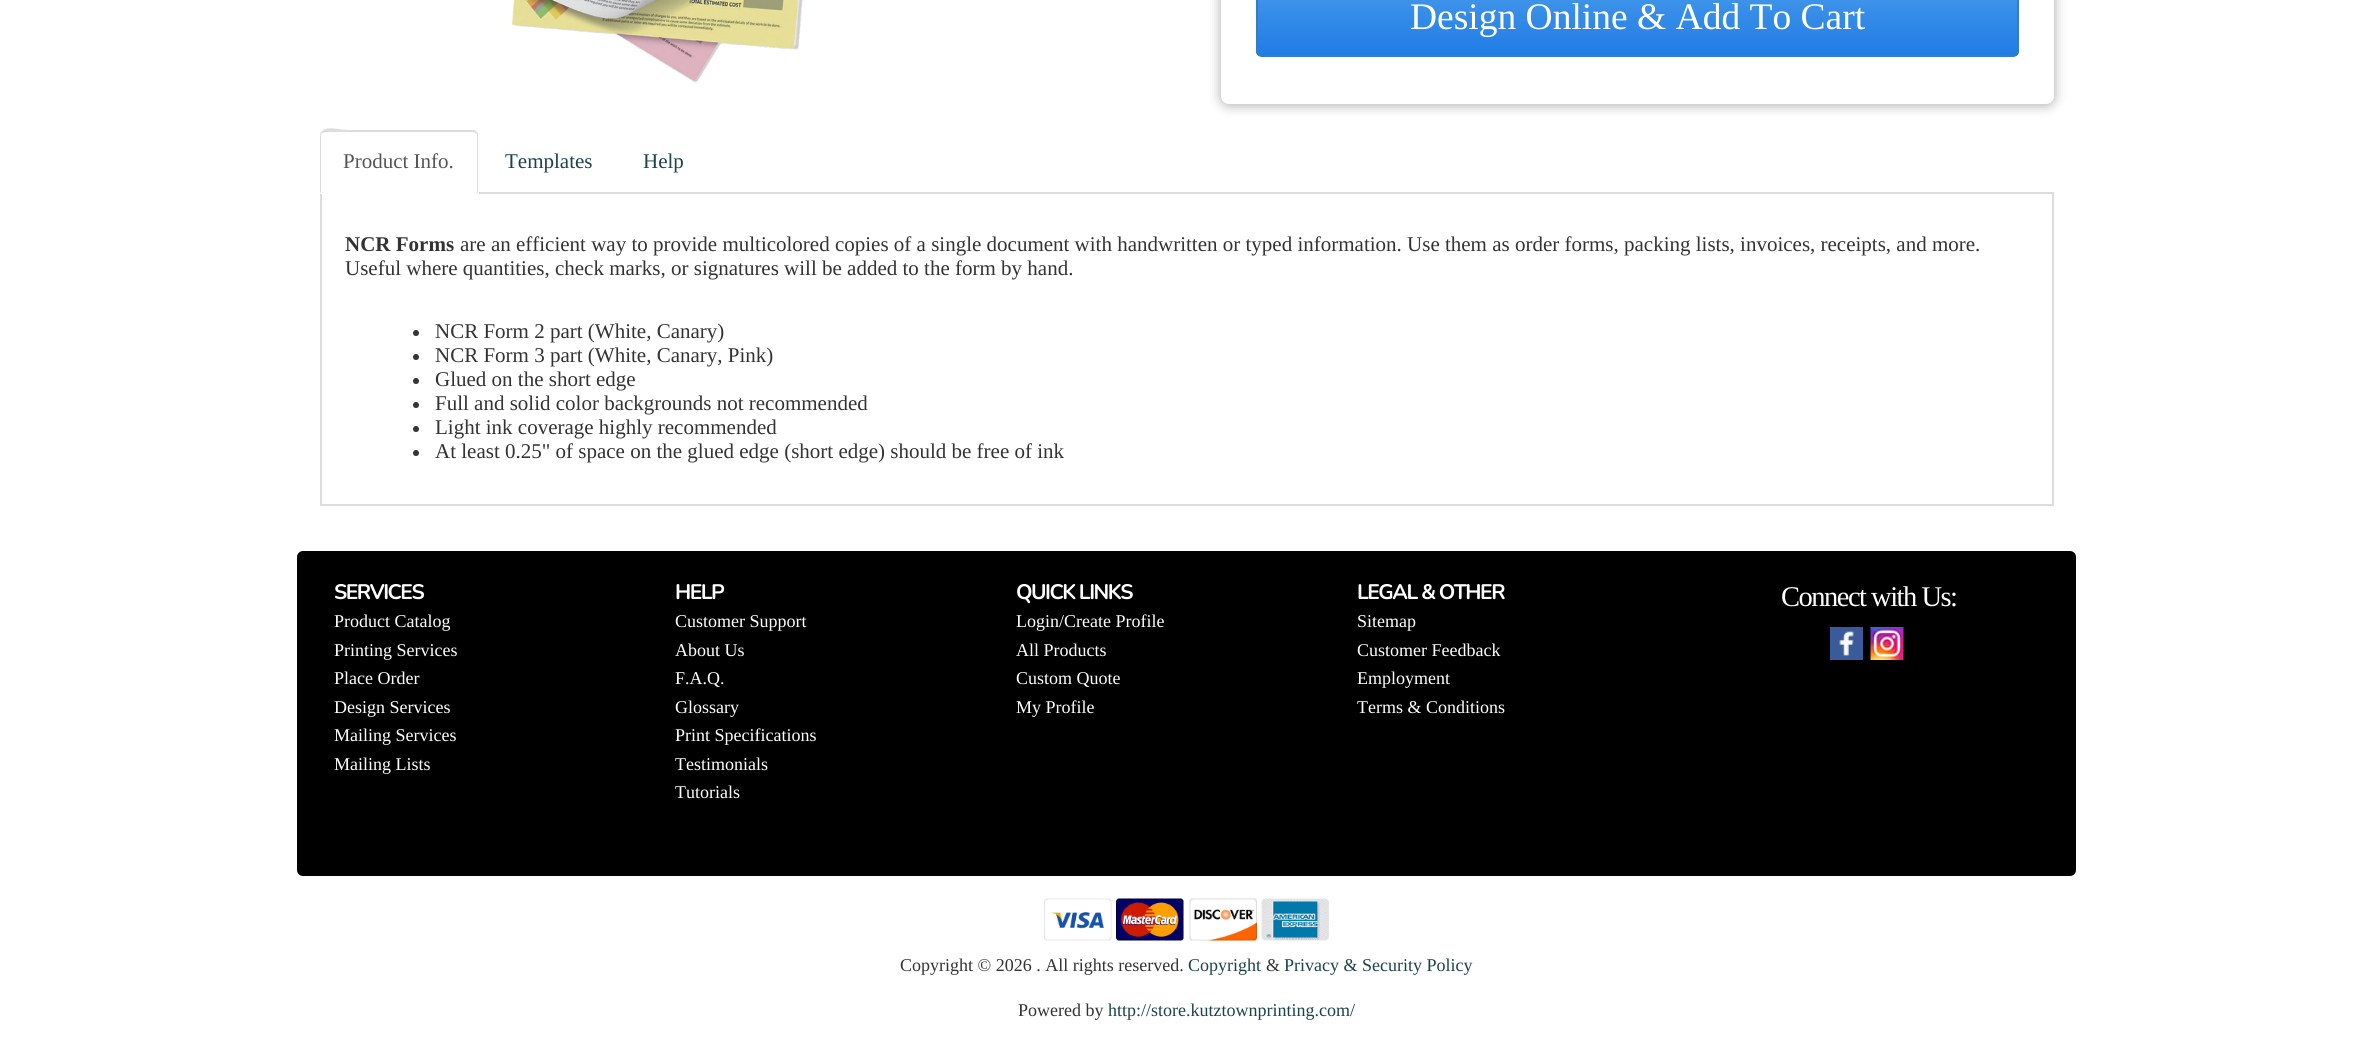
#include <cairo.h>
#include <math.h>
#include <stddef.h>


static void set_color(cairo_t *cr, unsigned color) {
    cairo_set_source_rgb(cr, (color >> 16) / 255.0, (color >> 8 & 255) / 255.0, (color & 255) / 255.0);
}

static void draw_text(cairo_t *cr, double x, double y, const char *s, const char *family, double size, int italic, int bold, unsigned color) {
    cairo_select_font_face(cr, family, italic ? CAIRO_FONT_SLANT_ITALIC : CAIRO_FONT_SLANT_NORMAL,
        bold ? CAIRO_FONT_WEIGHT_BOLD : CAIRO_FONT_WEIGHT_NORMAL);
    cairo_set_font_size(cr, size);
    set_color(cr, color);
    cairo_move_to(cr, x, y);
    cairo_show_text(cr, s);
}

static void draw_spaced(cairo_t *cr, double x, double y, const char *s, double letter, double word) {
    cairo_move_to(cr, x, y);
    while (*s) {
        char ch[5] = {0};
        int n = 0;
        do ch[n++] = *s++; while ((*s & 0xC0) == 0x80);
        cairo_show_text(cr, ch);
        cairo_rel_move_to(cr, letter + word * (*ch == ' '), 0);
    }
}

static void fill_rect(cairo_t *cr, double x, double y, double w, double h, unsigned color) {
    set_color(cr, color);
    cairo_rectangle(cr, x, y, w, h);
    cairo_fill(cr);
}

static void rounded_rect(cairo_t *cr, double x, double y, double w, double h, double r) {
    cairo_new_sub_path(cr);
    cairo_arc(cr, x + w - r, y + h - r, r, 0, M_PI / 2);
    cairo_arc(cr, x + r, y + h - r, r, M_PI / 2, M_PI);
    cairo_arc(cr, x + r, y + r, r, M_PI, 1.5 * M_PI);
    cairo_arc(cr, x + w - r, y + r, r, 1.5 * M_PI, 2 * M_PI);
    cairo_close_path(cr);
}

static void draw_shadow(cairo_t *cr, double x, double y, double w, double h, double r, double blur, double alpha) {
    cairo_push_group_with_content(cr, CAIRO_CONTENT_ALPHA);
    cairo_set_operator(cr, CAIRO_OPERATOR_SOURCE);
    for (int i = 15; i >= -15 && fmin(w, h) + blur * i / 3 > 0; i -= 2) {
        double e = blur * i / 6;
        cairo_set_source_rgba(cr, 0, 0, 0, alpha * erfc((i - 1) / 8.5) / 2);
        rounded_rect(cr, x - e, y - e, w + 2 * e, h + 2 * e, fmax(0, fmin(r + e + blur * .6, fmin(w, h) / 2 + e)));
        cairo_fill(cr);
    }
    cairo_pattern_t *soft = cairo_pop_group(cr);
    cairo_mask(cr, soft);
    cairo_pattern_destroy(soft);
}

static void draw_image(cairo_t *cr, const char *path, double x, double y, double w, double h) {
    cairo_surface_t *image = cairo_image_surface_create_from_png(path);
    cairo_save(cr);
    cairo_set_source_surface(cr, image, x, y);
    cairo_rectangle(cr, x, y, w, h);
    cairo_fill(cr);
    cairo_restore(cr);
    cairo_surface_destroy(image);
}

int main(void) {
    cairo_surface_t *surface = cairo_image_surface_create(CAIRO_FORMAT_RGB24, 2373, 1058);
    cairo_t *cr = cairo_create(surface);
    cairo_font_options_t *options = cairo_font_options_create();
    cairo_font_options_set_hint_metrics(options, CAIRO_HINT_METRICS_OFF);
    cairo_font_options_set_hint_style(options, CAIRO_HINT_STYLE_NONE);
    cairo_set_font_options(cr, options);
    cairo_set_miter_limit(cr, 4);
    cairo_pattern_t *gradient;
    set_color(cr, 0xFFFFFF);
    cairo_paint(cr);
    draw_image(cr, "assets/img1.png", 511, 0, 292, 83);
    set_color(cr, 0x000000);
    draw_shadow(cr, 1221, -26, 833, 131, 8, 6, 0.35);
    set_color(cr, 0xFFFFFF);
    rounded_rect(cr, 1221, -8, 833, 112, 8);
    cairo_fill(cr);
    cairo_save(cr);
    rounded_rect(cr, 1256, -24, 763, 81, 6);
    cairo_clip(cr);
    gradient = cairo_pattern_create_linear(1637, -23, 1637, 56);
    cairo_pattern_add_color_stop_rgba(gradient, 0, 0.286, 0.608, 0.918, 1);
    cairo_pattern_add_color_stop_rgba(gradient, 1, 0.125, 0.486, 0.898, 1);
    cairo_set_source(cr, gradient);
    cairo_pattern_destroy(gradient);
    cairo_rectangle(cr, 1256, 0, 763, 56);
    cairo_fill(cr);
    cairo_restore(cr);
    rounded_rect(cr, 1257, -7, 761, 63, 5);
    set_color(cr, 0x357EBD);
    cairo_stroke(cr);
    draw_text(cr, 1410, 29, "Design Online & Add To Cart", "Liberation Serif", 37.5, 0, 0, 0xFFFFFF);
    fill_rect(cr, 479, 192, 1575, 2, 0xDDDDDD);
    cairo_new_path(cr);
    cairo_move_to(cr, 326, 132);
    cairo_curve_to(cr, 324, 132, 323, 133, 322, 133);
    cairo_line_to(cr, 321, 132);
    cairo_curve_to(cr, 327, 125, 339, 130, 349, 130);
    cairo_line_to(cr, 475, 130);
    cairo_line_to(cr, 477, 132);
    cairo_line_to(cr, 476, 133);
    cairo_curve_to(cr, 475, 133, 474, 132, 472, 132);
    cairo_close_path(cr);
    cairo_fill(cr);
    cairo_new_path(cr);
    cairo_move_to(cr, 477, 132);
    cairo_curve_to(cr, 478, 133, 478, 135, 478, 136);
    cairo_line_to(cr, 478, 193);
    cairo_line_to(cr, 477, 192);
    cairo_line_to(cr, 477, 135);
    cairo_line_to(cr, 476, 133);
    cairo_close_path(cr);
    cairo_fill(cr);
    cairo_new_path(cr);
    cairo_move_to(cr, 320, 193);
    cairo_line_to(cr, 320, 136);
    cairo_curve_to(cr, 320, 135, 320, 133, 321, 132);
    cairo_line_to(cr, 322, 133);
    cairo_line_to(cr, 321, 135);
    cairo_line_to(cr, 321, 192);
    cairo_close_path(cr);
    cairo_fill(cr);
    draw_text(cr, 343, 168, "Product Info.", "Liberation Serif", 21, 0, 0, 0x555555);
    draw_text(cr, 505, 168, "Templates", "Liberation Serif", 21, 0, 0, 0x1B444A);
    draw_text(cr, 643, 168, "Help", "Liberation Serif", 21, 0, 0, 0x1B444A);
    fill_rect(cr, 2052, 194, 2, 312, 0xDDDDDD);
    fill_rect(cr, 320, 504, 1734, 2, 0xDDDDDD);
    fill_rect(cr, 320, 194, 2, 312, 0xDDDDDD);
    draw_text(cr, 345, 251, "NCR Forms", "Liberation Serif", 21, 0, 1, 0x333333);
    draw_text(cr, 460, 251, "are an efficient way to provide multicolored copies of a single document with handwritten or typed information. Use them as order forms, packing lists, invoices, receipts, and more.", "Liberation Serif", 21, 0, 0, 0x333333);
    draw_text(cr, 345, 275, "Useful where quantities, check marks, or signatures will be added to the form by hand.", "Liberation Serif", 21, 0, 0, 0x333333);
    cairo_new_path(cr);
    cairo_arc(cr, 416, 333, 3, 0, 2 * M_PI);
    cairo_fill(cr);
    draw_text(cr, 435, 338, "NCR Form 2 part (White, Canary)", "Liberation Serif", 21, 0, 0, 0x333333);
    cairo_new_path(cr);
    cairo_arc(cr, 416, 357, 3, 0, 2 * M_PI);
    cairo_fill(cr);
    draw_text(cr, 435, 362, "NCR Form 3 part (White, Canary, Pink)", "Liberation Serif", 21, 0, 0, 0x333333);
    cairo_new_path(cr);
    cairo_arc(cr, 416, 381, 3, 0, 2 * M_PI);
    cairo_fill(cr);
    draw_text(cr, 435, 386, "Glued on the short edge", "Liberation Serif", 21, 0, 0, 0x333333);
    cairo_new_path(cr);
    cairo_arc(cr, 416, 405, 3, 0, 2 * M_PI);
    cairo_fill(cr);
    draw_text(cr, 435, 410, "Full and solid color backgrounds not recommended", "Liberation Serif", 21, 0, 0, 0x333333);
    cairo_new_path(cr);
    cairo_arc(cr, 416, 429, 3, 0, 2 * M_PI);
    cairo_fill(cr);
    draw_text(cr, 435, 434, "Light ink coverage highly recommended", "Liberation Serif", 21, 0, 0, 0x333333);
    cairo_new_path(cr);
    cairo_arc(cr, 416, 453, 3, 0, 2 * M_PI);
    cairo_fill(cr);
    draw_text(cr, 435, 458, "At least 0.25\" of space on the glued edge (short edge) should be free of ink", "Liberation Serif", 21, 0, 0, 0x333333);
    set_color(cr, 0x000000);
    rounded_rect(cr, 297, 551, 1779, 325, 6);
    cairo_fill(cr);
    cairo_select_font_face(cr, "Nunito", CAIRO_FONT_SLANT_NORMAL, CAIRO_FONT_WEIGHT_BOLD);
    set_color(cr, 0xFFFFFF);
    draw_spaced(cr, 334, 599, "SERVICES", -1.5, 0);
    draw_text(cr, 334, 627, "Product Catalog", "Liberation Serif", 18, 0, 0, 0xFFFFFF);
    draw_text(cr, 334, 656, "Printing Services", "Liberation Serif", 18, 0, 0, 0xFFFFFF);
    draw_text(cr, 334, 684, "Place Order", "Liberation Serif", 18, 0, 0, 0xFFFFFF);
    draw_text(cr, 334, 713, "Design Services", "Liberation Serif", 18, 0, 0, 0xFFFFFF);
    draw_text(cr, 334, 741, "Mailing Services", "Liberation Serif", 18, 0, 0, 0xFFFFFF);
    draw_text(cr, 334, 770, "Mailing Lists", "Liberation Serif", 18, 0, 0, 0xFFFFFF);
    cairo_select_font_face(cr, "Nunito", CAIRO_FONT_SLANT_NORMAL, CAIRO_FONT_WEIGHT_BOLD);
    cairo_set_font_size(cr, 21);
    draw_spaced(cr, 675, 599, "HELP", -1.5, 0);
    draw_text(cr, 675, 627, "Customer Support", "Liberation Serif", 18, 0, 0, 0xFFFFFF);
    draw_text(cr, 675, 656, "About Us", "Liberation Serif", 18, 0, 0, 0xFFFFFF);
    draw_text(cr, 675, 684, "F.A.Q.", "Liberation Serif", 18, 0, 0, 0xFFFFFF);
    draw_text(cr, 675, 713, "Glossary", "Liberation Serif", 18, 0, 0, 0xFFFFFF);
    draw_text(cr, 675, 741, "Print Specifications", "Liberation Serif", 18, 0, 0, 0xFFFFFF);
    draw_text(cr, 675, 770, "Testimonials", "Liberation Serif", 18, 0, 0, 0xFFFFFF);
    draw_text(cr, 675, 798, "Tutorials", "Liberation Serif", 18, 0, 0, 0xFFFFFF);
    cairo_select_font_face(cr, "Nunito", CAIRO_FONT_SLANT_NORMAL, CAIRO_FONT_WEIGHT_BOLD);
    cairo_set_font_size(cr, 21);
    draw_spaced(cr, 1016, 599, "QUICK LINKS", -1.5, 0);
    draw_text(cr, 1016, 627, "Login/Create Profile", "Liberation Serif", 18, 0, 0, 0xFFFFFF);
    draw_text(cr, 1016, 656, "All Products", "Liberation Serif", 18, 0, 0, 0xFFFFFF);
    draw_text(cr, 1016, 684, "Custom Quote", "Liberation Serif", 18, 0, 0, 0xFFFFFF);
    draw_text(cr, 1016, 713, "My Profile", "Liberation Serif", 18, 0, 0, 0xFFFFFF);
    cairo_select_font_face(cr, "Nunito", CAIRO_FONT_SLANT_NORMAL, CAIRO_FONT_WEIGHT_BOLD);
    cairo_set_font_size(cr, 21);
    draw_spaced(cr, 1357, 599, "LEGAL & OTHER", -1.5, 0);
    draw_text(cr, 1357, 627, "Sitemap", "Liberation Serif", 18, 0, 0, 0xFFFFFF);
    draw_text(cr, 1357, 656, "Customer Feedback", "Liberation Serif", 18, 0, 0, 0xFFFFFF);
    draw_text(cr, 1357, 684, "Employment", "Liberation Serif", 18, 0, 0, 0xFFFFFF);
    draw_text(cr, 1357, 713, "Terms & Conditions", "Liberation Serif", 18, 0, 0, 0xFFFFFF);
    cairo_set_font_size(cr, 28.5);
    draw_spaced(cr, 1781, 606, "Connect with Us:", -1.5, 0);
    draw_image(cr, "assets/img2.png", 1830, 627, 33, 33);
    draw_image(cr, "assets/img3.png", 1870, 627, 34, 33);
    draw_image(cr, "assets/img4.png", 1044, 898, 68, 43);
    draw_image(cr, "assets/img5.png", 1116, 898, 68, 43);
    draw_image(cr, "assets/img6.png", 1189, 898, 68, 43);
    draw_image(cr, "assets/img7.png", 1261, 898, 68, 43);
    draw_text(cr, 900, 971, "Copyright © 2026 . All rights reserved.", "Liberation Serif", 18, 0, 0, 0x333333);
    draw_text(cr, 1188, 971, "Copyright", "Liberation Serif", 18, 0, 0, 0x1B444A);
    draw_text(cr, 1266, 971, "&", "Liberation Serif", 18, 0, 0, 0x333333);
    draw_text(cr, 1284, 971, "Privacy & Security Policy", "Liberation Serif", 18, 0, 0, 0x1B444A);
    draw_text(cr, 1018, 1016, "Powered by", "Liberation Serif", 18, 0, 0, 0x333333);
    draw_text(cr, 1108, 1016, "http://store.kutztownprinting.com/", "Liberation Serif", 18, 0, 0, 0x1B444A);
    cairo_surface_write_to_png(surface, "output.png");
    cairo_font_options_destroy(options);
    cairo_destroy(cr);
    cairo_surface_destroy(surface);
    return 0;
}
